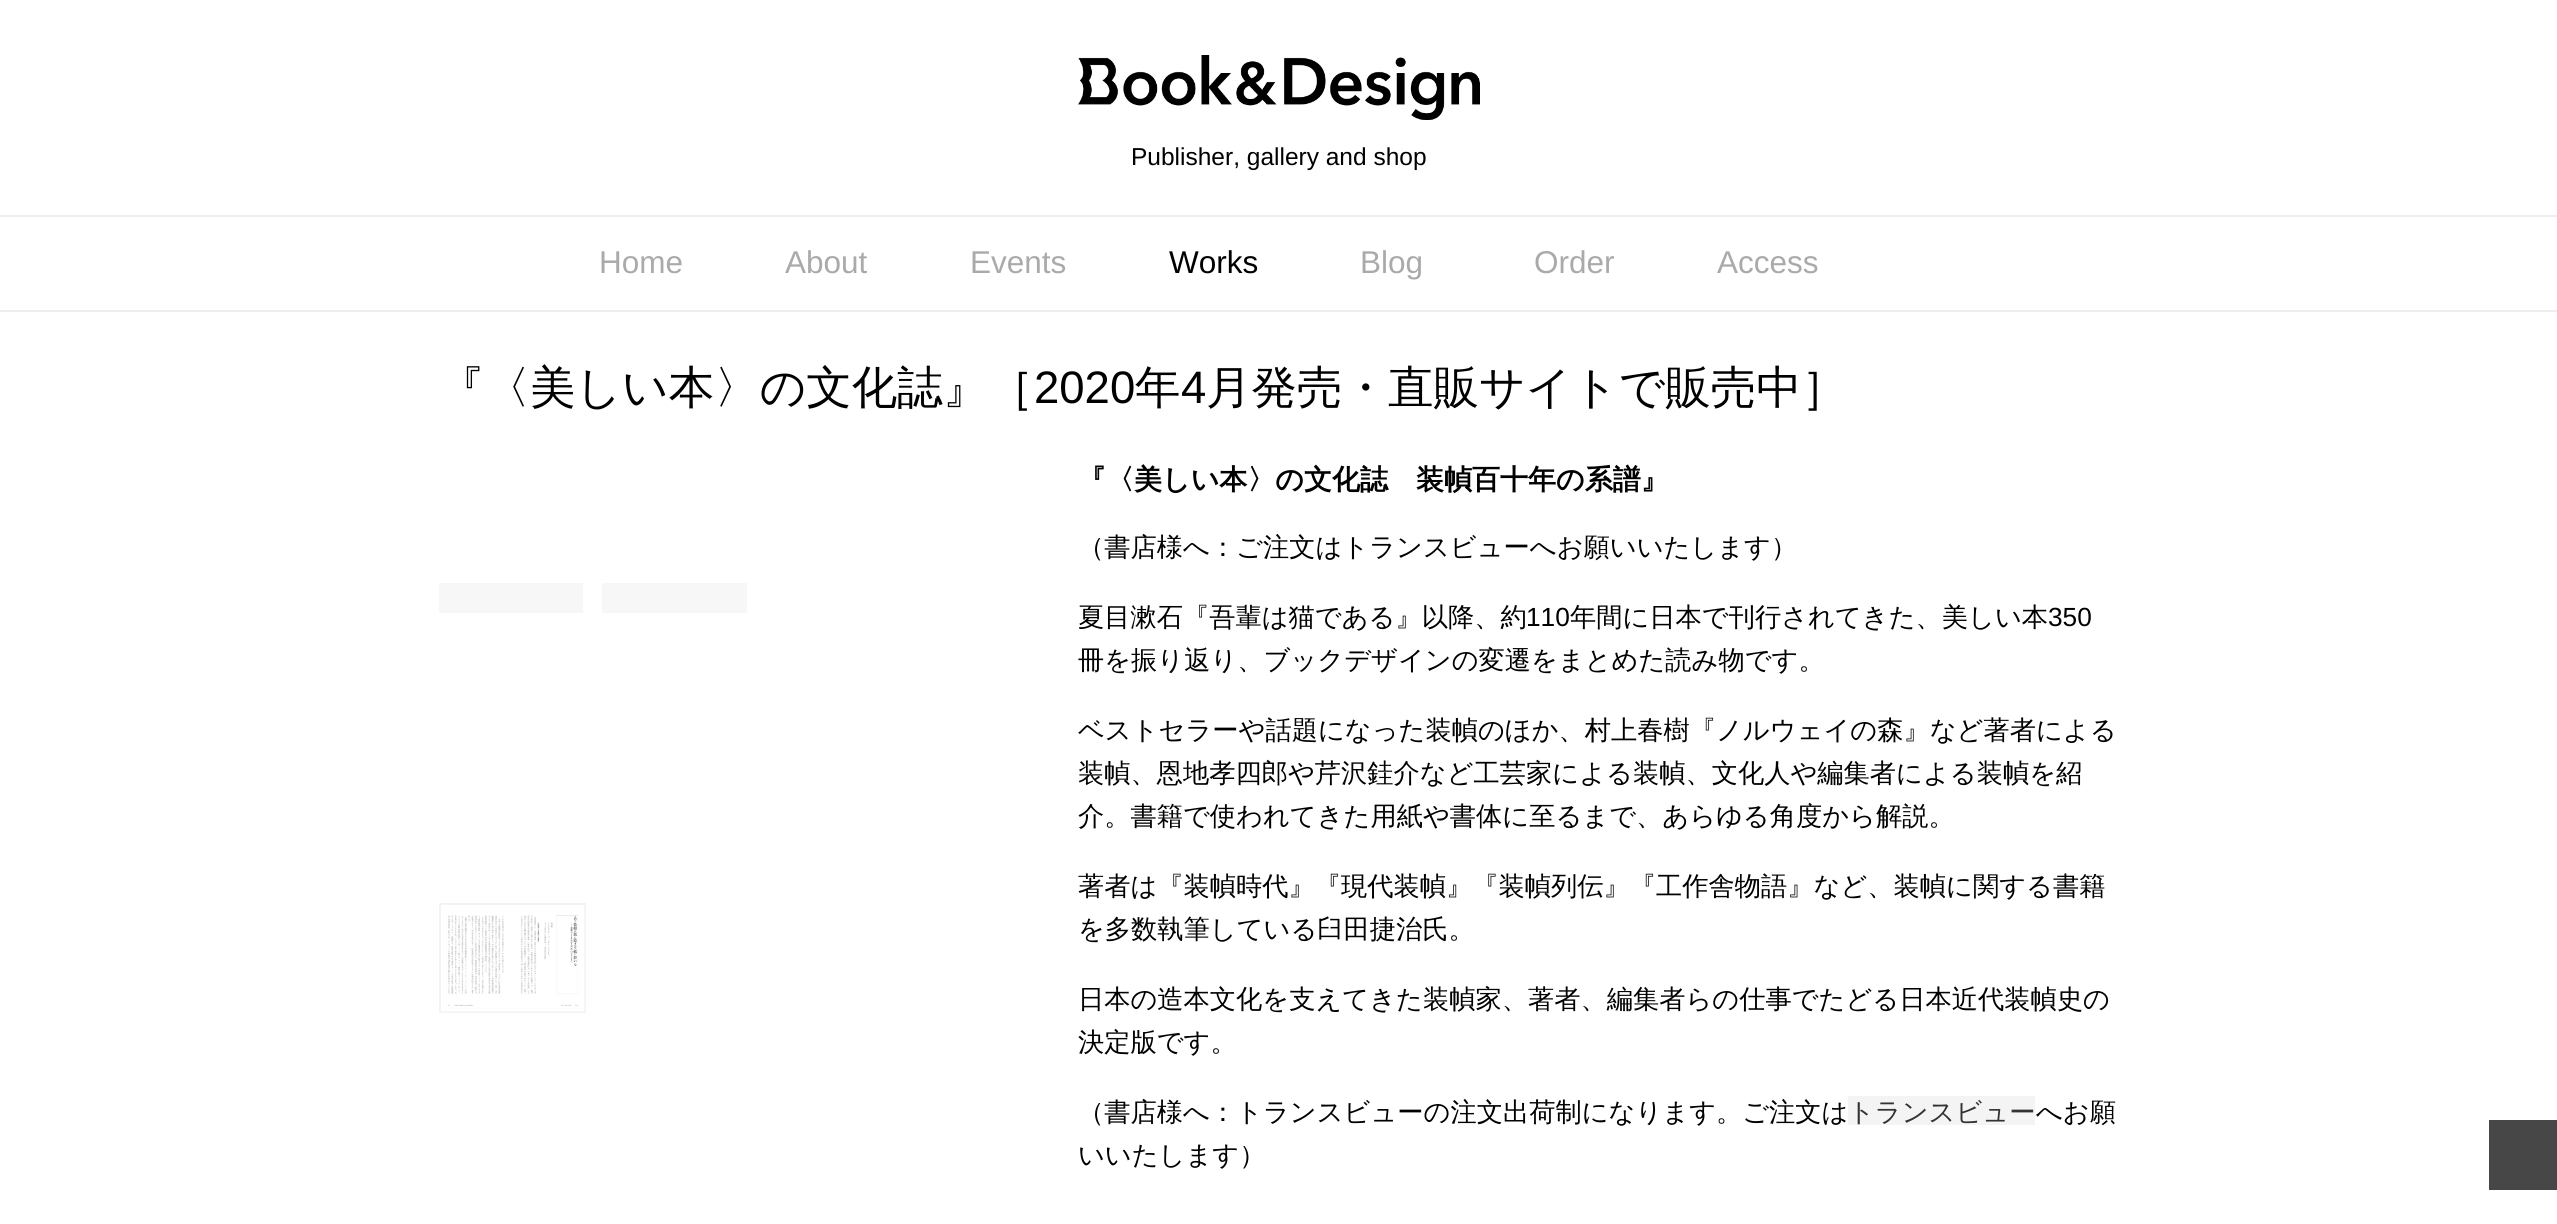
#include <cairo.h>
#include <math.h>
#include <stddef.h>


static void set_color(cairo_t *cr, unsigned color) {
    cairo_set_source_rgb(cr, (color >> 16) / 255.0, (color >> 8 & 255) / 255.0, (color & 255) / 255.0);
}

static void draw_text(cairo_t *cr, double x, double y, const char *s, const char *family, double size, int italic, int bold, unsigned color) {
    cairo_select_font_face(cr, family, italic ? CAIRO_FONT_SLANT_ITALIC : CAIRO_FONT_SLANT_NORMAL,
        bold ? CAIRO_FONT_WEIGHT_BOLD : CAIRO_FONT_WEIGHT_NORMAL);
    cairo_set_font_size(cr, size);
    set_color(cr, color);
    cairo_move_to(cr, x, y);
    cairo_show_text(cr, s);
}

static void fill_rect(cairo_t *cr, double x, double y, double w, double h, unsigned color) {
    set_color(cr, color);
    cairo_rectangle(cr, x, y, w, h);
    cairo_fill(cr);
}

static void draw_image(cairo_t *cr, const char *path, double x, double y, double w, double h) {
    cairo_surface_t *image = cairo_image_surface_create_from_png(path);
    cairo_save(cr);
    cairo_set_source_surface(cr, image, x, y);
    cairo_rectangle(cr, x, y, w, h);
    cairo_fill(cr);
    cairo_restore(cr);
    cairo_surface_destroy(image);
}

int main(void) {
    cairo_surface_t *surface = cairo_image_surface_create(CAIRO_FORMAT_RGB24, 2557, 1224);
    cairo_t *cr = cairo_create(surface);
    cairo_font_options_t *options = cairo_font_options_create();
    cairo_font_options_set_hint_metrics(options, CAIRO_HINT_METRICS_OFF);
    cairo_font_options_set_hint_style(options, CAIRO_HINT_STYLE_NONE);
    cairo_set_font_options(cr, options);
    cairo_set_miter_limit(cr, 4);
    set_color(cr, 0xFFFFFF);
    cairo_paint(cr);
    draw_image(cr, "assets/img1.png", 1078, 55, 402, 65);
    draw_text(cr, 1131, 165, "Publisher, gallery and shop", "Liberation Sans", 24.5, 0, 0, 0x000000);
    fill_rect(cr, 0, 215, 2557, 2, 0xEEEEEE);
    fill_rect(cr, 0, 310, 2557, 2, 0xEEEEEE);
    draw_text(cr, 599, 273, "Home", "Liberation Sans", 31.5, 0, 0, 0xAAAAAA);
    draw_text(cr, 785, 273, "About", "Liberation Sans", 31.5, 0, 0, 0xAAAAAA);
    draw_text(cr, 970, 273, "Events", "Liberation Sans", 31.5, 0, 0, 0xAAAAAA);
    draw_text(cr, 1169, 273, "Works", "Liberation Sans", 31.5, 0, 0, 0x000000);
    draw_text(cr, 1360, 273, "Blog", "Liberation Sans", 31.5, 0, 0, 0xAAAAAA);
    draw_text(cr, 1534, 273, "Order", "Liberation Sans", 31.5, 0, 0, 0xAAAAAA);
    draw_text(cr, 1717, 273, "Access", "Liberation Sans", 31.5, 0, 0, 0xAAAAAA);
    draw_text(cr, 439, 403, "『〈美しい本〉の文化誌』［", "WenQuanYi Zen Hei Medium", 45.5, 0, 0, 0x000000);
    draw_text(cr, 1034, 403, "2020", "Liberation Sans", 45.5, 0, 0, 0x000000);
    draw_text(cr, 1135, 403, "年", "WenQuanYi Zen Hei Medium", 45.5, 0, 0, 0x000000);
    draw_text(cr, 1181, 403, "4", "Liberation Sans", 45.5, 0, 0, 0x000000);
    draw_text(cr, 1206, 403, "月発売・直販サイトで販売中］", "WenQuanYi Zen Hei Medium", 45.5, 0, 0, 0x000000);
    fill_rect(cr, 439, 583, 144, 30, 0xF7F7F7);
    fill_rect(cr, 602, 583, 145, 30, 0xF7F7F7);
    cairo_rectangle(cr, 440, 904, 145, 108);
    set_color(cr, 0xF3F3F3);
    cairo_stroke(cr);
    draw_image(cr, "assets/img2.png", 441, 905, 144, 107);
    draw_text(cr, 1078, 489, "『〈美しい本〉の文化誌　装幀百十年の系譜』", "WenQuanYi Zen Hei", 28, 0, 1, 0x000000);
    draw_text(cr, 1078, 556, "（書店様へ：ご注文はトランスビューへお願いいたします）", "WenQuanYi Zen Hei Medium", 26.25, 0, 0, 0x000000);
    draw_text(cr, 1078, 626, "夏目漱石『吾輩は猫である』以降、約", "WenQuanYi Zen Hei Medium", 26.25, 0, 0, 0x000000);
    draw_text(cr, 1526, 626, "110", "Liberation Sans", 26.25, 0, 0, 0x000000);
    draw_text(cr, 1570, 626, "年間に日本で刊行されてきた、美しい本", "WenQuanYi Zen Hei Medium", 26.25, 0, 0, 0x000000);
    draw_text(cr, 2048, 626, "350", "Liberation Sans", 26.25, 0, 0, 0x000000);
    draw_text(cr, 1078, 669, "冊を振り返り、ブックデザインの変遷をまとめた読み物です。", "WenQuanYi Zen Hei Medium", 26.25, 0, 0, 0x000000);
    draw_text(cr, 1078, 739, "ベストセラーや話題になった装幀のほか、村上春樹『ノルウェイの森』など著者による", "WenQuanYi Zen Hei Medium", 26.25, 0, 0, 0x000000);
    draw_text(cr, 1078, 782, "装幀、恩地孝四郎や芹沢銈介など工芸家による装幀、文化人や編集者による装幀を紹", "WenQuanYi Zen Hei Medium", 26.25, 0, 0, 0x000000);
    draw_text(cr, 1078, 825, "介。書籍で使われてきた用紙や書体に至るまで、あらゆる角度から解説。", "WenQuanYi Zen Hei Medium", 26.25, 0, 0, 0x000000);
    draw_text(cr, 1078, 895, "著者は『装幀時代』『現代装幀』『装幀列伝』『工作舎物語』など、装幀に関する書籍", "WenQuanYi Zen Hei Medium", 26.25, 0, 0, 0x000000);
    draw_text(cr, 1078, 938, "を多数執筆している臼田捷治氏。", "WenQuanYi Zen Hei Medium", 26.25, 0, 0, 0x000000);
    draw_text(cr, 1078, 1008, "日本の造本文化を支えてきた装幀家、著者、編集者らの仕事でたどる日本近代装幀史の", "WenQuanYi Zen Hei Medium", 26.25, 0, 0, 0x000000);
    draw_text(cr, 1078, 1051, "決定版です。", "WenQuanYi Zen Hei Medium", 26.25, 0, 0, 0x000000);
    draw_text(cr, 1078, 1121, "（書店様へ：トランスビューの注文出荷制になります。ご注文は", "WenQuanYi Zen Hei Medium", 26.25, 0, 0, 0x000000);
    fill_rect(cr, 1848, 1096, 187, 29, 0xF4F4F4);
    draw_text(cr, 1848, 1121, "トランスビュー", "WenQuanYi Zen Hei Medium", 26.25, 0, 0, 0x333333);
    draw_text(cr, 2036, 1121, "へお願", "WenQuanYi Zen Hei Medium", 26.25, 0, 0, 0x000000);
    draw_text(cr, 1078, 1164, "いいたします）", "WenQuanYi Zen Hei Medium", 26.25, 0, 0, 0x000000);
    fill_rect(cr, 2489, 1120, 68, 70, 0x474747);
    cairo_surface_write_to_png(surface, "output.png");
    cairo_font_options_destroy(options);
    cairo_destroy(cr);
    cairo_surface_destroy(surface);
    return 0;
}
